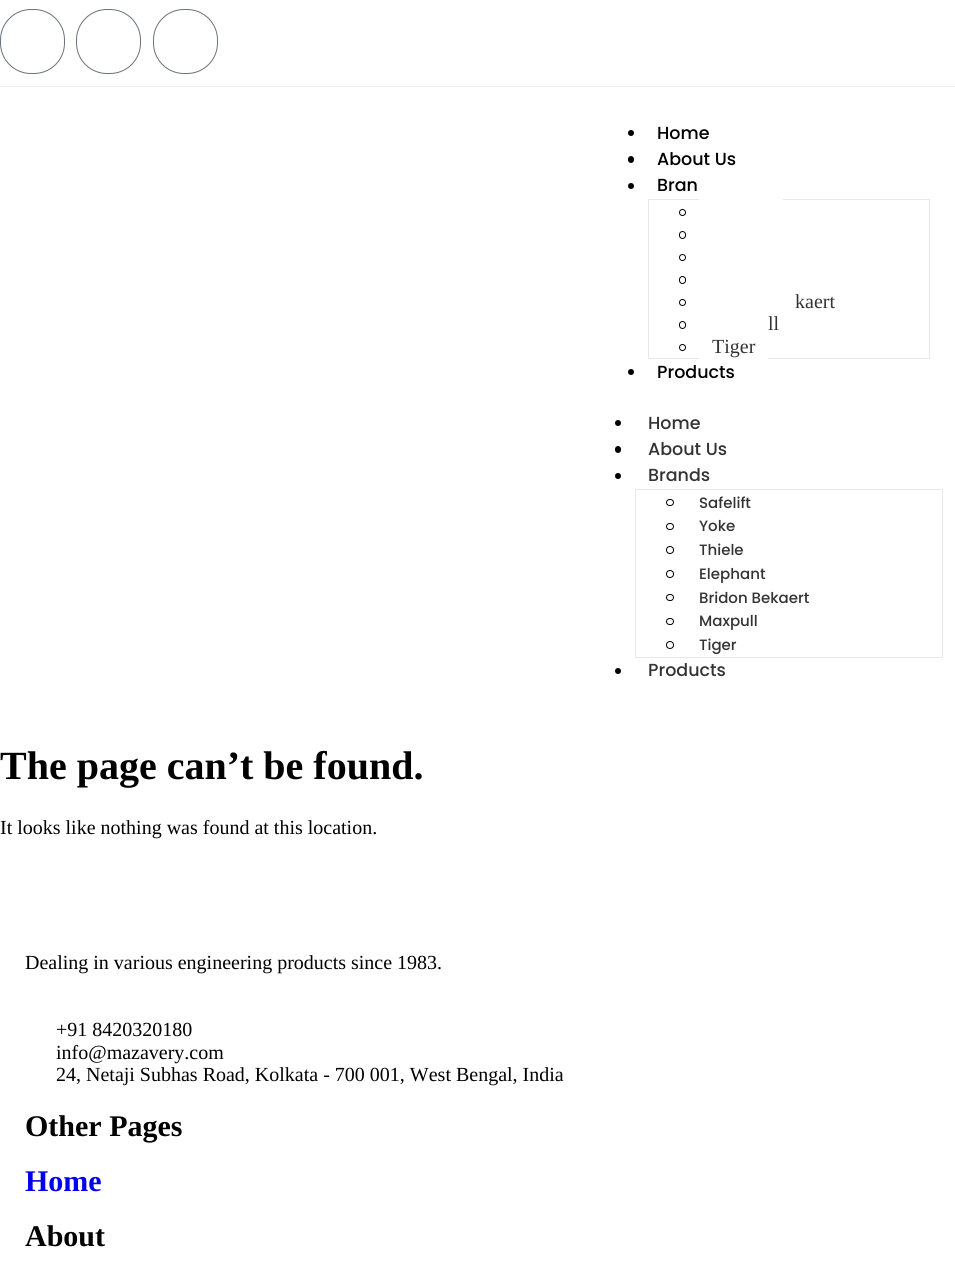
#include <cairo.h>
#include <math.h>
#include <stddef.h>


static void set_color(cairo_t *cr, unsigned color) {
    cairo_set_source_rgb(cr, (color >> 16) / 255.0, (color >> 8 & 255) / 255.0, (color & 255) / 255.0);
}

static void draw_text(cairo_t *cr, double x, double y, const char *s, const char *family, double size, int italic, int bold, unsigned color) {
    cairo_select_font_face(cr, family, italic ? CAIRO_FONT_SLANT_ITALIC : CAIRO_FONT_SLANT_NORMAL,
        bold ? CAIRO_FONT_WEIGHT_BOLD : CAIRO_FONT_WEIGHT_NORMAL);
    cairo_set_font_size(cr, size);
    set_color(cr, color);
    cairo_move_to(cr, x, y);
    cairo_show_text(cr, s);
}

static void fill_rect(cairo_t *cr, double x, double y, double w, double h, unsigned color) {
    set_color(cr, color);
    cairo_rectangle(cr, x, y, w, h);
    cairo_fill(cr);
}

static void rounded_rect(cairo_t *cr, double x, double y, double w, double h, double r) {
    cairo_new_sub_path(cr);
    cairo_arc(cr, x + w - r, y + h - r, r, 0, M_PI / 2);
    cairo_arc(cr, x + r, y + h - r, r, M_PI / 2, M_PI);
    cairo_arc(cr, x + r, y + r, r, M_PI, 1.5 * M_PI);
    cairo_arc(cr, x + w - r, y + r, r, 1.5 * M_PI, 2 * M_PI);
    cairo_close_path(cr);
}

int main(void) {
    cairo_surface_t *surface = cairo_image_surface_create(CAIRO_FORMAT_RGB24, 955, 1281);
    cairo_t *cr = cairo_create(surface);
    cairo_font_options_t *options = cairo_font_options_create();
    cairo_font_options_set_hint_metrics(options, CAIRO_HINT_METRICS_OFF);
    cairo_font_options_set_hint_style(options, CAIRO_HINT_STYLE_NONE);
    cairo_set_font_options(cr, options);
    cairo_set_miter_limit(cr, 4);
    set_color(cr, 0xFFFFFF);
    cairo_paint(cr);
    rounded_rect(cr, 0.5, 9.5, 64, 64, 30.5);
    set_color(cr, 0x69727D);
    cairo_set_line_width(cr, 1);
    cairo_stroke(cr);
    rounded_rect(cr, 76.5, 9.5, 64, 64, 30.5);
    cairo_stroke(cr);
    rounded_rect(cr, 153.5, 9.5, 64, 64, 30.5);
    cairo_stroke(cr);
    fill_rect(cr, 0, 86, 955, 1, 0xEDEDED);
    set_color(cr, 0x000000);
    cairo_arc(cr, 631, 133, 3, 0, 2 * M_PI);
    cairo_fill(cr);
    draw_text(cr, 657, 139, "Home", "Poppins Medium", 17.5, 0, 0, 0x000000);
    rounded_rect(cr, 628, 156, 6, 7, 3);
    cairo_fill(cr);
    draw_text(cr, 657, 165, "About Us", "Poppins Medium", 17.5, 0, 0, 0x000000);
    cairo_new_path(cr);
    cairo_arc(cr, 631, 186, 3, 0, 2 * M_PI);
    cairo_fill(cr);
    draw_text(cr, 657, 191, "Bran", "Poppins Medium", 17.5, 0, 0, 0x000000);
    cairo_rectangle(cr, 648.5, 199.5, 281, 159);
    set_color(cr, 0xE8E8E8);
    cairo_stroke(cr);
    fill_rect(cr, 699, 199, 84, 1, 0xFFFFFF);
    cairo_arc(cr, 682.5, 212.5, 3, 0, 2 * M_PI);
    set_color(cr, 0x000000);
    cairo_stroke(cr);
    rounded_rect(cr, 679.5, 231.5, 6, 7, 3);
    cairo_stroke(cr);
    cairo_arc(cr, 682.5, 257.5, 3, 0, 2 * M_PI);
    cairo_stroke(cr);
    rounded_rect(cr, 679.5, 276.5, 6, 7, 3);
    cairo_stroke(cr);
    cairo_arc(cr, 682.5, 302.5, 3, 0, 2 * M_PI);
    cairo_stroke(cr);
    draw_text(cr, 795, 308, "kaert", "Liberation Serif", 20, 0, 0, 0x333333);
    rounded_rect(cr, 679.5, 321.5, 6, 7, 3);
    set_color(cr, 0x000000);
    cairo_stroke(cr);
    draw_text(cr, 768, 330, "ll", "Liberation Serif", 20, 0, 0, 0x333333);
    cairo_new_path(cr);
    cairo_arc(cr, 682.5, 347.5, 3, 0, 2 * M_PI);
    set_color(cr, 0x000000);
    cairo_stroke(cr);
    draw_text(cr, 712, 353, "Tiger", "Liberation Serif", 20, 0, 0, 0x333333);
    fill_rect(cr, 699, 358, 69, 1, 0xFFFFFF);
    set_color(cr, 0x000000);
    cairo_new_path(cr);
    cairo_arc(cr, 631, 372, 3, 0, 2 * M_PI);
    cairo_fill(cr);
    draw_text(cr, 657, 378, "Products", "Poppins Medium", 17.5, 0, 0, 0x000000);
    cairo_new_path(cr);
    cairo_arc(cr, 618, 423, 3, 0, 2 * M_PI);
    cairo_fill(cr);
    draw_text(cr, 648, 429, "Home", "Poppins Medium", 17.5, 0, 0, 0x333333);
    set_color(cr, 0x000000);
    rounded_rect(cr, 615, 446, 6, 7, 3);
    cairo_fill(cr);
    draw_text(cr, 648, 455, "About Us", "Poppins Medium", 17.5, 0, 0, 0x333333);
    set_color(cr, 0x000000);
    cairo_new_path(cr);
    cairo_arc(cr, 618, 476, 3, 0, 2 * M_PI);
    cairo_fill(cr);
    draw_text(cr, 648, 481, "Brands", "Poppins Medium", 17.5, 0, 0, 0x333333);
    cairo_rectangle(cr, 635.5, 489.5, 307, 168);
    set_color(cr, 0xE8E8E8);
    cairo_stroke(cr);
    rounded_rect(cr, 666.5, 499.5, 7, 6, 3);
    set_color(cr, 0x000000);
    cairo_stroke(cr);
    draw_text(cr, 699, 508, "Safelift", "Poppins Medium", 15, 0, 0, 0x333333);
    rounded_rect(cr, 666.5, 523.5, 7, 6, 3);
    set_color(cr, 0x000000);
    cairo_stroke(cr);
    draw_text(cr, 699, 531, "Yoke", "Poppins Medium", 15, 0, 0, 0x333333);
    cairo_new_path(cr);
    cairo_arc(cr, 670, 550, 3.5, 0, 2 * M_PI);
    set_color(cr, 0x000000);
    cairo_stroke(cr);
    draw_text(cr, 699, 555, "Thiele", "Poppins Medium", 15, 0, 0, 0x333333);
    cairo_new_path(cr);
    cairo_arc(cr, 670, 574, 3.5, 0, 2 * M_PI);
    set_color(cr, 0x000000);
    cairo_stroke(cr);
    draw_text(cr, 699, 579, "Elephant", "Poppins Medium", 15, 0, 0, 0x333333);
    rounded_rect(cr, 666.5, 594.5, 7, 6, 3);
    set_color(cr, 0x000000);
    cairo_stroke(cr);
    draw_text(cr, 699, 603, "Bridon Bekaert", "Poppins Medium", 15, 0, 0, 0x333333);
    rounded_rect(cr, 666.5, 618.5, 7, 6, 3);
    set_color(cr, 0x000000);
    cairo_stroke(cr);
    draw_text(cr, 699, 626, "Maxpull", "Poppins Medium", 15, 0, 0, 0x333333);
    cairo_new_path(cr);
    cairo_arc(cr, 670, 645, 3.5, 0, 2 * M_PI);
    set_color(cr, 0x000000);
    cairo_stroke(cr);
    draw_text(cr, 699, 650, "Tiger", "Poppins Medium", 15, 0, 0, 0x333333);
    set_color(cr, 0x000000);
    cairo_new_path(cr);
    cairo_arc(cr, 618, 671, 3, 0, 2 * M_PI);
    cairo_fill(cr);
    draw_text(cr, 648, 676, "Products", "Poppins Medium", 17.5, 0, 0, 0x333333);
    draw_text(cr, 0, 779, "The page can’t be found.", "Liberation Serif", 40, 0, 1, 0x000000);
    draw_text(cr, 0, 834, "It looks like nothing was found at this location.", "Liberation Serif", 20, 0, 0, 0x000000);
    draw_text(cr, 25, 969, "Dealing in various engineering products since 1983.", "Liberation Serif", 20, 0, 0, 0x000000);
    draw_text(cr, 56, 1036, "+91 8420320180", "Liberation Serif", 20, 0, 0, 0x000000);
    draw_text(cr, 56, 1059, "info@mazavery.com", "Liberation Serif", 20, 0, 0, 0x000000);
    draw_text(cr, 56, 1081, "24, Netaji Subhas Road, Kolkata - 700 001, West Bengal, India", "Liberation Serif", 20, 0, 0, 0x000000);
    draw_text(cr, 25, 1136, "Other Pages", "Liberation Serif", 30, 0, 1, 0x000000);
    draw_text(cr, 25, 1191, "Home", "Liberation Serif", 30, 0, 1, 0x0000EE);
    draw_text(cr, 25, 1246, "About", "Liberation Serif", 30, 0, 1, 0x000000);
    cairo_surface_write_to_png(surface, "output.png");
    cairo_font_options_destroy(options);
    cairo_destroy(cr);
    cairo_surface_destroy(surface);
    return 0;
}
